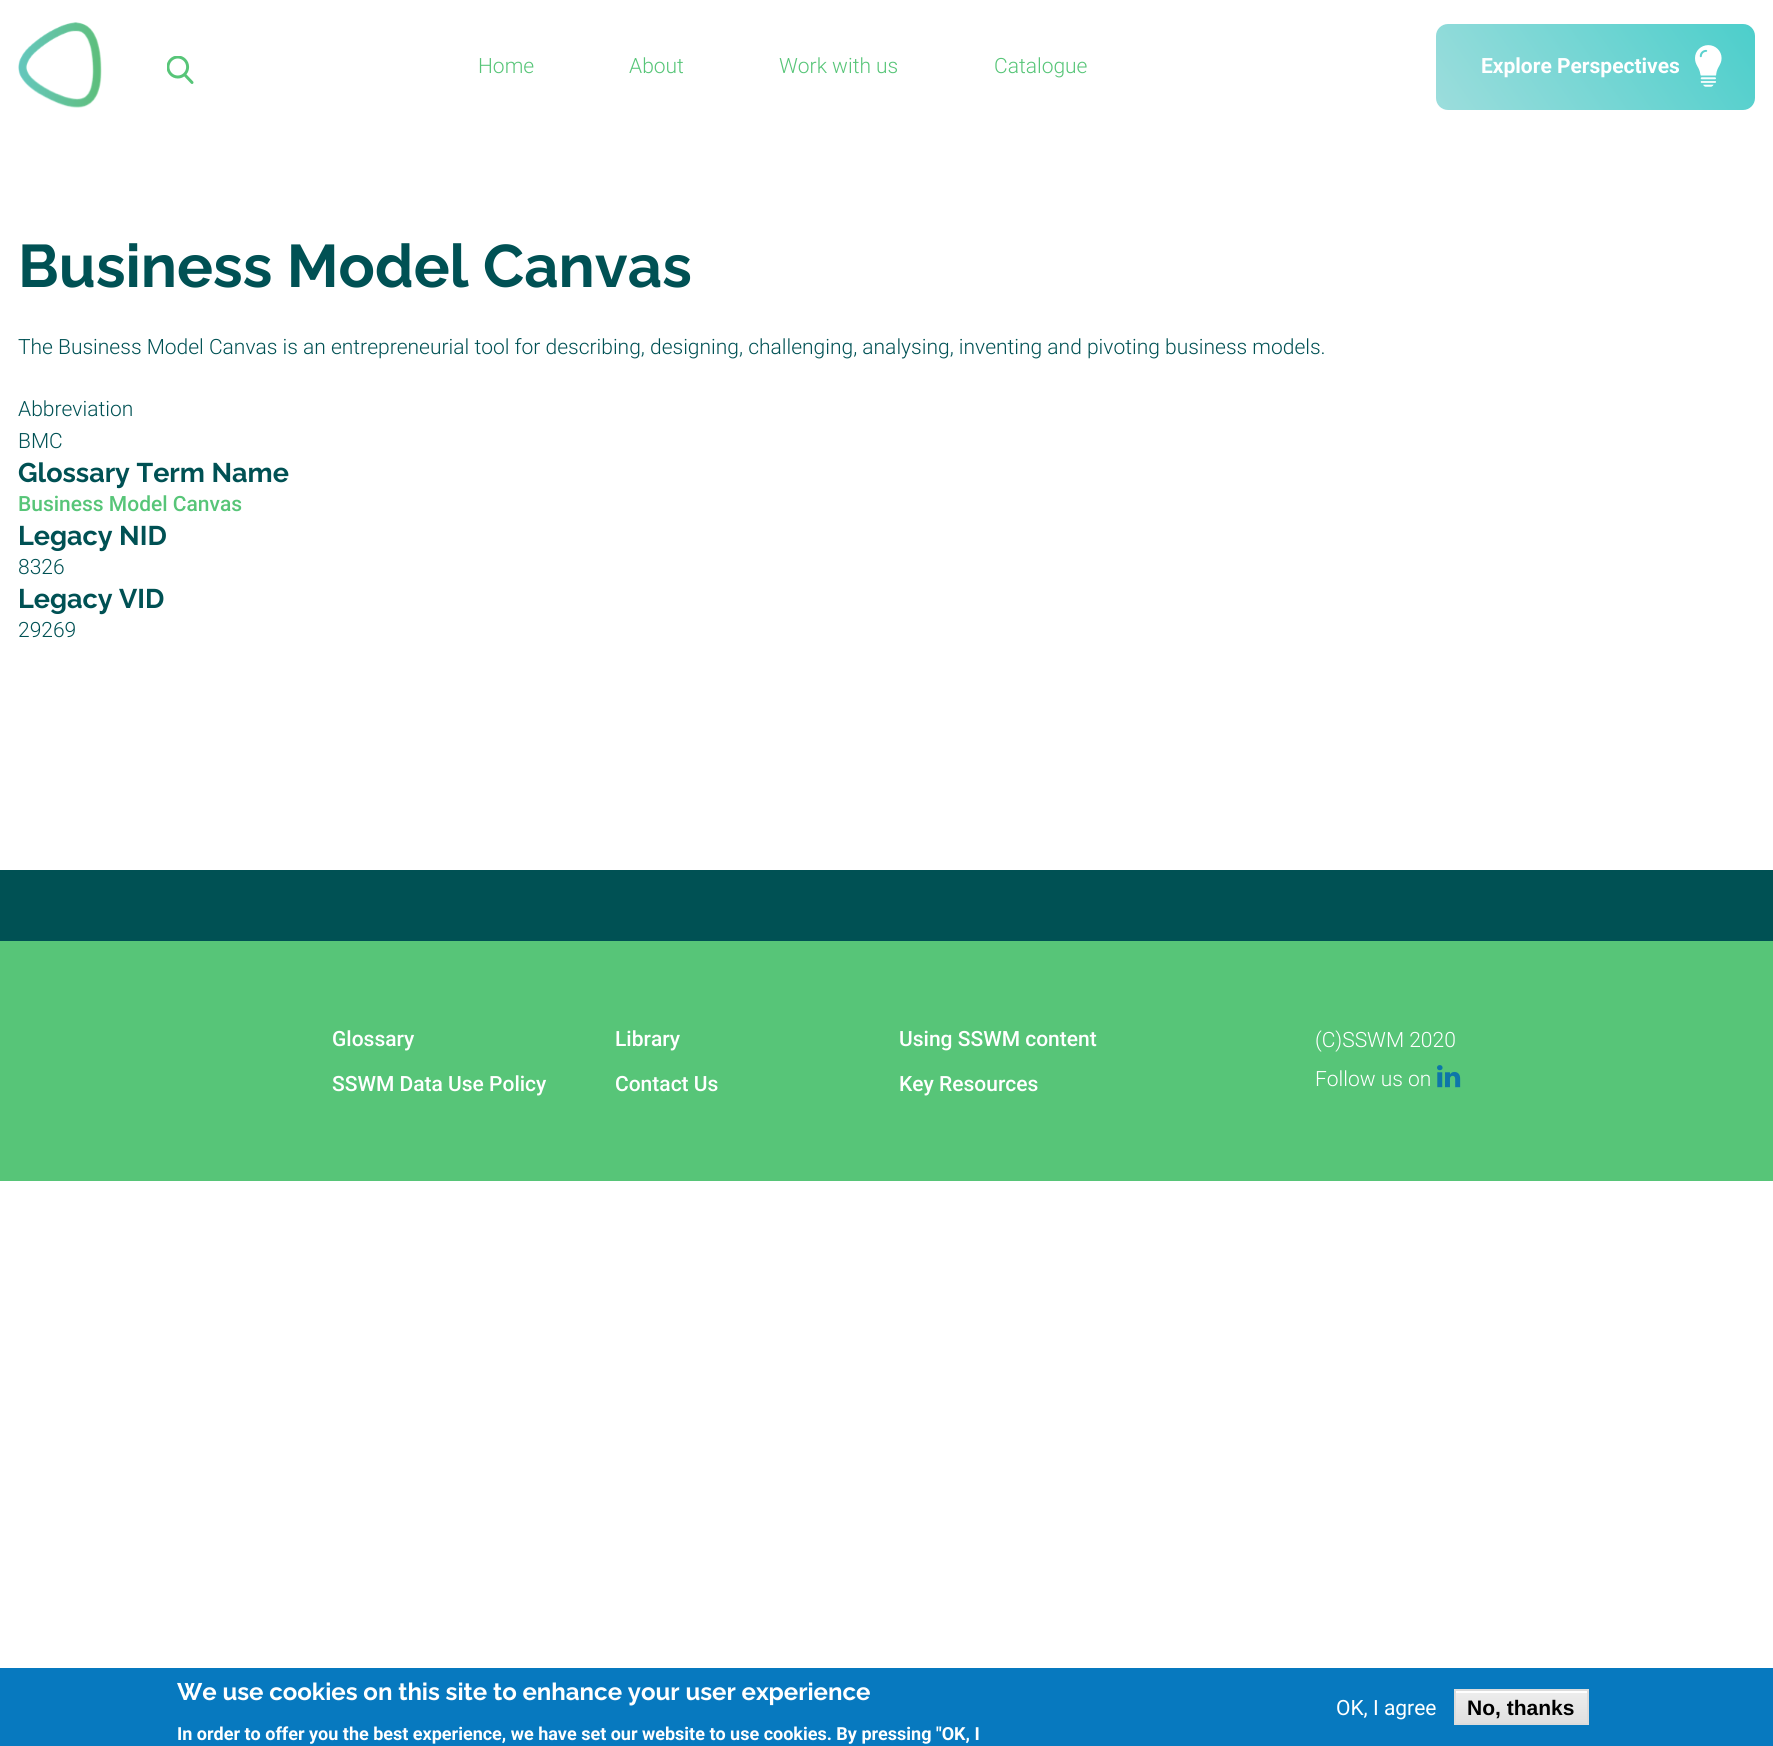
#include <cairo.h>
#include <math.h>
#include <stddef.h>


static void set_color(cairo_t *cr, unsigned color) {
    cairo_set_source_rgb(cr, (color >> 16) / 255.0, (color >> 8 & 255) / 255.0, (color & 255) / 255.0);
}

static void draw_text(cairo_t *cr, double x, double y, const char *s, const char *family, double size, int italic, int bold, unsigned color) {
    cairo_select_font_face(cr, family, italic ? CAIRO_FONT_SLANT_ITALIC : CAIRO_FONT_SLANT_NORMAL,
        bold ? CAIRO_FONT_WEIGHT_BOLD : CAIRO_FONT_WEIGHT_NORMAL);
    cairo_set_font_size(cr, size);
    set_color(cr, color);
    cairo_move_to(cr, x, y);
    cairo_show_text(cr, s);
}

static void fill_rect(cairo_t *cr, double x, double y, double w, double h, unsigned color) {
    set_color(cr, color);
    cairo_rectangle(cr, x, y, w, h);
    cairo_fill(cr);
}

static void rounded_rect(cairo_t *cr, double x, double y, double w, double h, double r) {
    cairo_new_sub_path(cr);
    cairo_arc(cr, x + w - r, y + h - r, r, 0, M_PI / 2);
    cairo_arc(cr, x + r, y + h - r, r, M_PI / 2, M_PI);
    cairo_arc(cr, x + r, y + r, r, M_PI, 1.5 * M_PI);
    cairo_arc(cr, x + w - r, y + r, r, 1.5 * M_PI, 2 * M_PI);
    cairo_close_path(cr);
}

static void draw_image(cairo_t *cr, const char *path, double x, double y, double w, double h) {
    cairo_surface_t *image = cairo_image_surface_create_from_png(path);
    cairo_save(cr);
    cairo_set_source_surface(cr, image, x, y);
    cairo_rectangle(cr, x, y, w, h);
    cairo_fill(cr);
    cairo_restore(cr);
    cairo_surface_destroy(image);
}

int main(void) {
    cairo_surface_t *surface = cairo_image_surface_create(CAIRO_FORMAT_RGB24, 1773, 1746);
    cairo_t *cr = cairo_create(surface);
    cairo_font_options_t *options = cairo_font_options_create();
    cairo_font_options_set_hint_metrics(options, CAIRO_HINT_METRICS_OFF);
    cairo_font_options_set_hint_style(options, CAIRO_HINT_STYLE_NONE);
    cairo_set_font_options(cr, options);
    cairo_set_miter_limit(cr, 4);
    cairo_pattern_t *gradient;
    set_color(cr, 0xFFFFFF);
    cairo_paint(cr);
    draw_image(cr, "assets/img1.png", 18, 22, 84, 86);
    draw_image(cr, "assets/img2.png", 167, 56, 27, 28);
    draw_text(cr, 478, 73, "Home", "Roboto Light", 21, 0, 0, 0x57C578);
    draw_text(cr, 629, 73, "About", "Roboto Light", 21, 0, 0, 0x57C578);
    draw_text(cr, 779, 73, "Work with us", "Roboto Light", 21, 0, 0, 0x57C578);
    draw_text(cr, 994, 73, "Catalogue", "Roboto Light", 21, 0, 0, 0x57C578);
    gradient = cairo_pattern_create_linear(1723, -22, 1468, 156);
    cairo_pattern_add_color_stop_rgba(gradient, 0, 0.298, 0.808, 0.796, 1);
    cairo_pattern_add_color_stop_rgba(gradient, 1, 0.612, 0.867, 0.863, 1);
    cairo_set_source(cr, gradient);
    cairo_pattern_destroy(gradient);
    rounded_rect(cr, 1436, 24, 319, 86, 12);
    cairo_fill(cr);
    draw_text(cr, 1481, 73, "Explore Perspectives", "Roboto", 21, 0, 1, 0xFFFFFF);
    draw_image(cr, "assets/img3.png", 1695, 45, 27, 42);
    draw_text(cr, 18, 287, "Business Model Canvas", "Raleway", 60, 0, 1, 0x005154);
    draw_text(cr, 18, 354, "The Business Model Canvas is an entrepreneurial tool for describing, designing, challenging, analysing, inventing and pivoting business models.", "Roboto Light", 21, 0, 0, 0x005154);
    draw_text(cr, 18, 416, "Abbreviation", "Roboto Light", 21, 0, 0, 0x005154);
    draw_text(cr, 18, 448, "BMC", "Roboto Light", 21, 0, 0, 0x005154);
    draw_text(cr, 18, 482, "Glossary Term Name", "Raleway", 27, 0, 1, 0x005154);
    draw_text(cr, 18, 511, "Business Model Canvas", "Roboto Medium", 21, 0, 0, 0x57C578);
    draw_text(cr, 18, 545, "Legacy NID", "Raleway", 27, 0, 1, 0x005154);
    draw_text(cr, 18, 574, "8326", "Roboto Light", 21, 0, 0, 0x005154);
    draw_text(cr, 18, 608, "Legacy VID", "Raleway", 27, 0, 1, 0x005154);
    draw_text(cr, 18, 637, "29269", "Roboto Light", 21, 0, 0, 0x005154);
    fill_rect(cr, 0, 870, 1773, 71, 0x005154);
    fill_rect(cr, 0, 941, 1773, 240, 0x57C578);
    draw_text(cr, 332, 1046, "Glossary", "Roboto Medium", 21, 0, 0, 0xFFFFFF);
    draw_text(cr, 615, 1046, "Library", "Roboto Medium", 21, 0, 0, 0xFFFFFF);
    draw_text(cr, 899, 1046, "Using SSWM content", "Roboto Medium", 21, 0, 0, 0xFFFFFF);
    draw_text(cr, 332, 1091, "SSWM Data Use Policy", "Roboto Medium", 21, 0, 0, 0xFFFFFF);
    draw_text(cr, 615, 1091, "Contact Us", "Roboto Medium", 21, 0, 0, 0xFFFFFF);
    draw_text(cr, 899, 1091, "Key Resources", "Roboto Medium", 21, 0, 0, 0xFFFFFF);
    draw_text(cr, 1315, 1047, "(C)SSWM 2020", "Roboto Light", 21, 0, 0, 0xFFFFFF);
    draw_text(cr, 1315, 1086, "Follow us on", "Roboto Light", 21, 0, 0, 0xFFFFFF);
    draw_image(cr, "assets/img4.png", 1437, 1065, 24, 23);
    fill_rect(cr, 0, 1668, 1773, 78, 0x0779BF);
    draw_text(cr, 177, 1700, "We use cookies on this site to enhance your user experience", "Raleway", 24, 0, 1, 0xFFFFFF);
    draw_text(cr, 177, 1740, "In order to offer you the best experience, we have set our website to use cookies. By pressing \"OK, I", "Roboto", 18, 0, 1, 0xFFFFFF);
    draw_text(cr, 1336, 1715, "OK, I agree", "Roboto", 21, 0, 0, 0xFFFFFF);
    gradient = cairo_pattern_create_linear(1521, 1691, 1521, 1724);
    cairo_pattern_add_color_stop_rgba(gradient, 0.05, 0.929, 0.929, 0.929, 1);
    cairo_pattern_add_color_stop_rgba(gradient, 1, 0.875, 0.875, 0.875, 1);
    cairo_set_source(cr, gradient);
    cairo_pattern_destroy(gradient);
    cairo_rectangle(cr, 1456, 1693, 131, 30);
    cairo_fill(cr);
    fill_rect(cr, 1455, 1691, 132, 2, 0xFFFFFF);
    cairo_rectangle(cr, 1455, 1690, 133, 34);
    set_color(cr, 0xDCDCDC);
    cairo_stroke(cr);
    draw_text(cr, 1467, 1715, "No, thanks", "Liberation Sans", 21, 0, 1, 0x000000);
    cairo_surface_write_to_png(surface, "output.png");
    cairo_font_options_destroy(options);
    cairo_destroy(cr);
    cairo_surface_destroy(surface);
    return 0;
}
